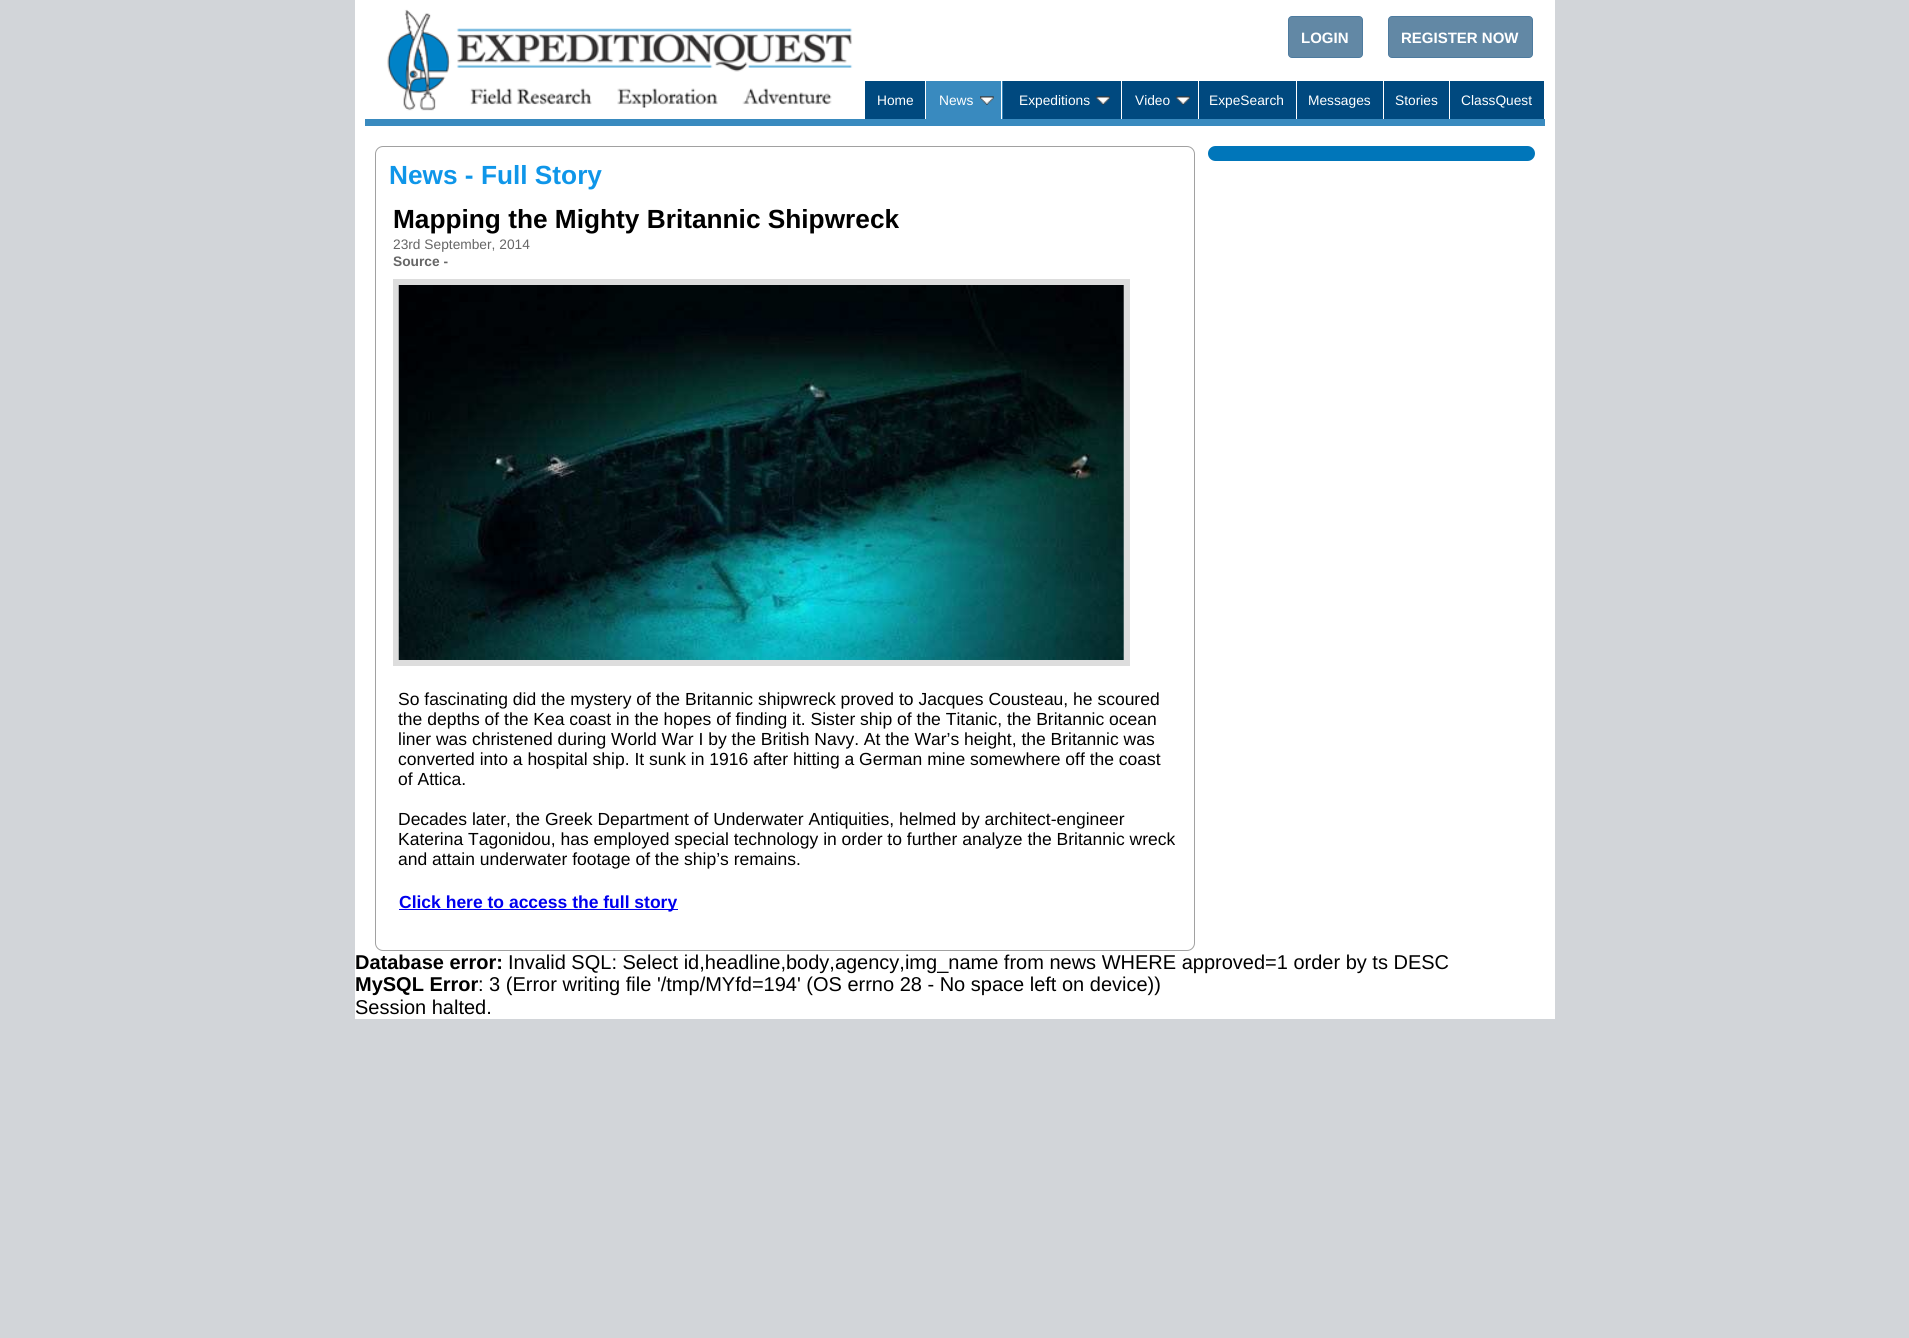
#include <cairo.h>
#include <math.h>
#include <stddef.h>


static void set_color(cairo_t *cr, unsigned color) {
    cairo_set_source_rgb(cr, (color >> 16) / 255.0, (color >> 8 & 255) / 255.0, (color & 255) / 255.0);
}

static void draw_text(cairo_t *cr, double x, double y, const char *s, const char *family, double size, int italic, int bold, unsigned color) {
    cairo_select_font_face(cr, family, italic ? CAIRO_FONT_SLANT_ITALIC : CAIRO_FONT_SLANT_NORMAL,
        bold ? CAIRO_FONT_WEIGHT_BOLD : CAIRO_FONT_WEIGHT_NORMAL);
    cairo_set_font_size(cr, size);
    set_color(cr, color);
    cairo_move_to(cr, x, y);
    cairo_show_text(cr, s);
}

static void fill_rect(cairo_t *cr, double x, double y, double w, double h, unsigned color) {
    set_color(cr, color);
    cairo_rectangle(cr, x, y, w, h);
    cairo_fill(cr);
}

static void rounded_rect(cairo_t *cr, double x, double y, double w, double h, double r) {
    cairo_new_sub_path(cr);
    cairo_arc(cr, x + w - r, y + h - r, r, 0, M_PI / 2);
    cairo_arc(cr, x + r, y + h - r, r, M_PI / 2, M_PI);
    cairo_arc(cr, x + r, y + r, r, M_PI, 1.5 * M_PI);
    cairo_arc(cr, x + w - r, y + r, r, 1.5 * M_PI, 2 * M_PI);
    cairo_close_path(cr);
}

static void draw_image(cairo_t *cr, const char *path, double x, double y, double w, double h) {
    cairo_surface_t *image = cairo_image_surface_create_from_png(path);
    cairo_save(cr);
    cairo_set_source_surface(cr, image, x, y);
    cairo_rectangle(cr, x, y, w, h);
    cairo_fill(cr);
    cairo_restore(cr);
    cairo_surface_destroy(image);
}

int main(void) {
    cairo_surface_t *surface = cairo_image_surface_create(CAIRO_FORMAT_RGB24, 1909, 1338);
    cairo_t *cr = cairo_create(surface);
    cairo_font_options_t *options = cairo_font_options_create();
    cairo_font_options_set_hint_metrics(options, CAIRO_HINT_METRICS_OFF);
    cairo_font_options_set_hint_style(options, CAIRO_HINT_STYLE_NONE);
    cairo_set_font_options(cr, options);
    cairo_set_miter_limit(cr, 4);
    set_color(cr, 0xD2D5D9);
    cairo_paint(cr);
    fill_rect(cr, 355, 0, 1200, 1019, 0xFFFFFF);
    fill_rect(cr, 365, 119, 1180, 7, 0x398ABF);
    draw_image(cr, "assets/img1.png", 387, 9, 466, 102);
    set_color(cr, 0x6288A5);
    rounded_rect(cr, 1288.5, 16.5, 74, 41, 3.5);
    cairo_fill_preserve(cr);
    set_color(cr, 0x4D7B9F);
    cairo_set_line_width(cr, 1);
    cairo_stroke(cr);
    draw_text(cr, 1301, 43, "LOGIN", "Liberation Sans", 15, 0, 1, 0xFFFFFF);
    set_color(cr, 0x6288A5);
    rounded_rect(cr, 1388.5, 16.5, 144, 41, 3.5);
    cairo_fill_preserve(cr);
    set_color(cr, 0x4D7B9F);
    cairo_stroke(cr);
    draw_text(cr, 1401, 43, "REGISTER NOW", "Liberation Sans", 15, 0, 1, 0xFFFFFF);
    fill_rect(cr, 865, 81, 60, 38, 0x00497F);
    draw_text(cr, 877, 105, "Home", "Liberation Sans", 13.75, 0, 0, 0xFFFFFF);
    fill_rect(cr, 926, 81, 77, 38, 0x398ABF);
    fill_rect(cr, 1001, 81, 1, 38, 0xFFFFFF);
    draw_text(cr, 939, 105, "News", "Liberation Sans", 13.75, 0, 0, 0xFFFFFF);
    draw_image(cr, "assets/img2.png", 980, 96, 14, 9);
    fill_rect(cr, 1003, 81, 195, 38, 0x00497F);
    fill_rect(cr, 1121, 81, 1, 38, 0xFFFFFF);
    draw_text(cr, 1019, 105, "Expeditions", "Liberation Sans", 13.75, 0, 0, 0xFFFFFF);
    draw_image(cr, "assets/img3.png", 1096, 96, 14, 9);
    draw_text(cr, 1135, 105, "Video", "Liberation Sans", 13.75, 0, 0, 0xFFFFFF);
    draw_image(cr, "assets/img3.png", 1176, 96, 14, 9);
    fill_rect(cr, 1199, 81, 184, 38, 0x00497F);
    draw_text(cr, 1209, 105, "ExpeSearch", "Liberation Sans", 13.75, 0, 0, 0xFFFFFF);
    fill_rect(cr, 1296, 81, 1, 38, 0xFFFFFF);
    draw_text(cr, 1308, 105, "Messages", "Liberation Sans", 13.75, 0, 0, 0xFFFFFF);
    fill_rect(cr, 1384, 81, 65, 38, 0x00497F);
    draw_text(cr, 1395, 105, "Stories", "Liberation Sans", 13.75, 0, 0, 0xFFFFFF);
    fill_rect(cr, 1450, 81, 94, 38, 0x00497F);
    draw_text(cr, 1461, 105, "ClassQuest", "Liberation Sans", 13.75, 0, 0, 0xFFFFFF);
    set_color(cr, 0x0076BA);
    rounded_rect(cr, 1208, 146, 327, 15, 7.5);
    cairo_fill(cr);
    rounded_rect(cr, 375.5, 146.5, 819, 804, 7.5);
    set_color(cr, 0xA1A1A1);
    cairo_stroke(cr);
    draw_text(cr, 389, 184, "News - Full Story", "Liberation Sans", 26.25, 0, 1, 0x0F96E9);
    draw_text(cr, 393, 228, "Mapping the Mighty Britannic Shipwreck", "Liberation Sans", 26.25, 0, 1, 0x000000);
    draw_text(cr, 393, 249, "23rd September, 2014", "Liberation Sans", 13.75, 0, 0, 0x666666);
    draw_text(cr, 393, 266, "Source -", "Liberation Sans", 13.75, 0, 1, 0x666666);
    cairo_rectangle(cr, 396, 282, 731, 381);
    set_color(cr, 0xDDDDDD);
    cairo_set_line_width(cr, 6);
    cairo_stroke(cr);
    draw_image(cr, "assets/img4.png", 398, 285, 726, 375);
    draw_text(cr, 398, 705, "So fascinating did the mystery of the Britannic shipwreck proved to Jacques Cousteau, he scoured", "Liberation Sans", 17.5, 0, 0, 0x000000);
    draw_text(cr, 398, 725, "the depths of the Kea coast in the hopes of finding it. Sister ship of the Titanic, the Britannic ocean", "Liberation Sans", 17.5, 0, 0, 0x000000);
    draw_text(cr, 398, 745, "liner was christened during World War I by the British Navy. At the War’s height, the Britannic was", "Liberation Sans", 17.5, 0, 0, 0x000000);
    draw_text(cr, 398, 765, "converted into a hospital ship. It sunk in 1916 after hitting a German mine somewhere off the coast", "Liberation Sans", 17.5, 0, 0, 0x000000);
    draw_text(cr, 398, 785, "of Attica.", "Liberation Sans", 17.5, 0, 0, 0x000000);
    draw_text(cr, 398, 825, "Decades later, the Greek Department of Underwater Antiquities, helmed by architect-engineer", "Liberation Sans", 17.5, 0, 0, 0x000000);
    draw_text(cr, 398, 845, "Katerina Tagonidou, has employed special technology in order to further analyze the Britannic wreck", "Liberation Sans", 17.5, 0, 0, 0x000000);
    draw_text(cr, 398, 865, "and attain underwater footage of the ship’s remains.", "Liberation Sans", 17.5, 0, 0, 0x000000);
    fill_rect(cr, 399, 909, 279, 1, 0x0000EE);
    draw_text(cr, 399, 908, "Click here to access the full story", "Liberation Sans", 17.5, 0, 1, 0x0000EE);
    draw_text(cr, 355, 969, "Database error:", "Liberation Sans", 20, 0, 1, 0x000000);
    draw_text(cr, 508, 969, "Invalid SQL: Select id,headline,body,agency,img_name from news WHERE approved=1 order by ts DESC", "Liberation Sans", 20, 0, 0, 0x000000);
    draw_text(cr, 355, 991, "MySQL Error", "Liberation Sans", 20, 0, 1, 0x000000);
    draw_text(cr, 478, 991, ": 3 (Error writing file '/tmp/MYfd=194' (OS errno 28 - No space left on device))", "Liberation Sans", 20, 0, 0, 0x000000);
    draw_text(cr, 355, 1014, "Session halted.", "Liberation Sans", 20, 0, 0, 0x000000);
    cairo_surface_write_to_png(surface, "output.png");
    cairo_font_options_destroy(options);
    cairo_destroy(cr);
    cairo_surface_destroy(surface);
    return 0;
}
